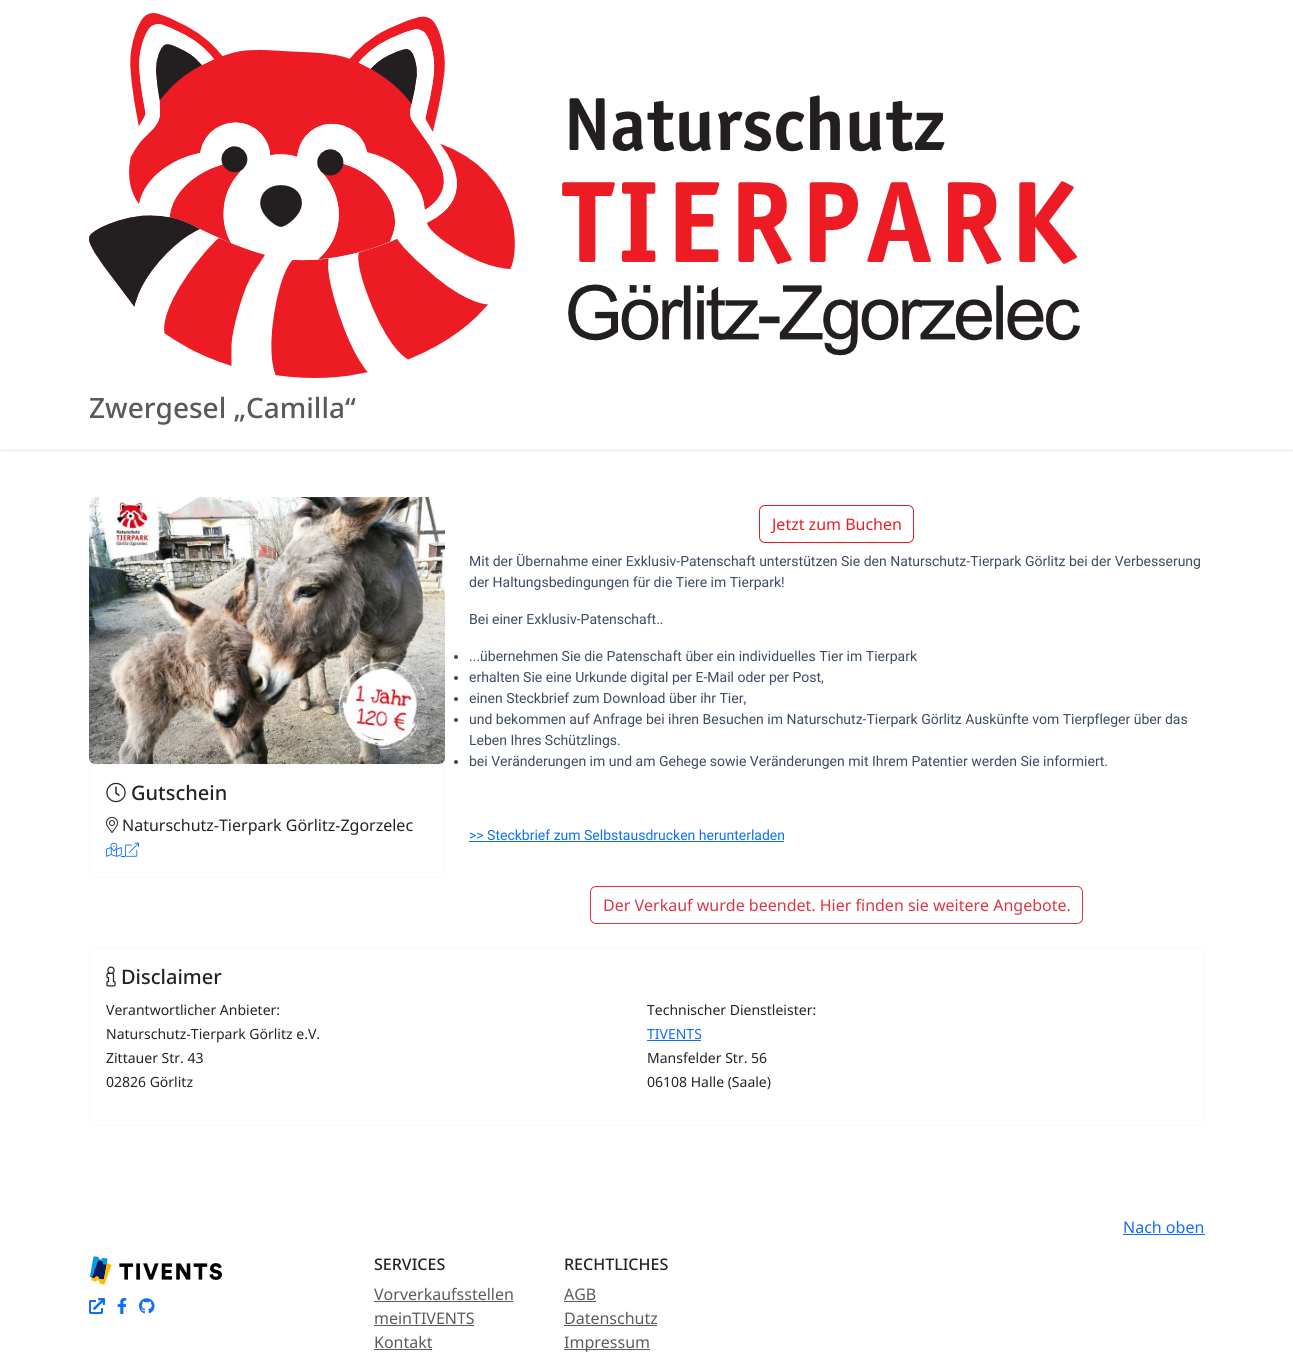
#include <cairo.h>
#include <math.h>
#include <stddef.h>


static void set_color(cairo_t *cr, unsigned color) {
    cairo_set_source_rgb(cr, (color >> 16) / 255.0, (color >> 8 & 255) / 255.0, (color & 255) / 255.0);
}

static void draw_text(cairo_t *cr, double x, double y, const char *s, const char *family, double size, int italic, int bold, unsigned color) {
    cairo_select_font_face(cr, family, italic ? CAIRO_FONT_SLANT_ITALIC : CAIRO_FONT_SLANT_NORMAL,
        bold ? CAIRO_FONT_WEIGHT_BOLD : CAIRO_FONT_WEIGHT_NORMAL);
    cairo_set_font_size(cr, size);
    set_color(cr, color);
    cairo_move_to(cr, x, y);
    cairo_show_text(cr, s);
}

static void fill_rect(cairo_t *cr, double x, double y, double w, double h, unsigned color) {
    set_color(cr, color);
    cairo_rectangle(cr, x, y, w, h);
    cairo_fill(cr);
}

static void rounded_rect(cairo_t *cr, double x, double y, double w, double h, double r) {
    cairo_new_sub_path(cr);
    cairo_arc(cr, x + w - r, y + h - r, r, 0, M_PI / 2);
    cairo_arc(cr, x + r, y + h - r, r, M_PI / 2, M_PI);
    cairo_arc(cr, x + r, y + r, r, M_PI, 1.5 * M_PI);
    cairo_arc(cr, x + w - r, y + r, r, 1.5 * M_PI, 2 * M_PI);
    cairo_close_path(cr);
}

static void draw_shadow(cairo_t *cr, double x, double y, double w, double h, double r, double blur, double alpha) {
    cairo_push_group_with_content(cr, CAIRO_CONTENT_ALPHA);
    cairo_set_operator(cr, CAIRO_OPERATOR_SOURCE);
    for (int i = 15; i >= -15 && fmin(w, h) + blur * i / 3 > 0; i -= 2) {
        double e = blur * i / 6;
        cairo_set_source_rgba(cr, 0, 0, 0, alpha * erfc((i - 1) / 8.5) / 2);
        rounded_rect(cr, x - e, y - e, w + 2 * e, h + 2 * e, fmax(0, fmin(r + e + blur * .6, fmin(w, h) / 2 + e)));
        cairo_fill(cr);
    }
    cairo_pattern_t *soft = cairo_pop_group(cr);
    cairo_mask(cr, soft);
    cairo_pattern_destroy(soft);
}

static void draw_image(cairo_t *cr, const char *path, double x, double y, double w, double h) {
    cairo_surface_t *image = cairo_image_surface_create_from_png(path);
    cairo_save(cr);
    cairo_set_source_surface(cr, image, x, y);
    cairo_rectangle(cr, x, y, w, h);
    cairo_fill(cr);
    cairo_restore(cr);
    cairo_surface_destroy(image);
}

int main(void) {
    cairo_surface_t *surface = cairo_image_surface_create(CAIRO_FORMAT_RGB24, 1293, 1370);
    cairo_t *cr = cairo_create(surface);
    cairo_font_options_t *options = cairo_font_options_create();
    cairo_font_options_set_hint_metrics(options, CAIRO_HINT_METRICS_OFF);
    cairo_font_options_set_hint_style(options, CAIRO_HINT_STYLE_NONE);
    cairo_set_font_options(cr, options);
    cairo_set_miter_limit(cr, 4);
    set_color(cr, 0xFFFFFF);
    cairo_paint(cr);
    cairo_save(cr);
    cairo_rectangle(cr, 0, 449, 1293, 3);
    cairo_clip(cr);
    set_color(cr, 0x000000);
    draw_shadow(cr, 0, 2, 1293, 449, 0, 2, 0.07);
    cairo_restore(cr);
    draw_image(cr, "assets/img1.png", 89, 13, 991, 365);
    draw_text(cr, 89, 418, "Zwergesel „Camilla“", "Noto Sans Medium", 28, 0, 0, 0x595959);
    draw_image(cr, "assets/img2.png", 89, 497, 356, 267);
    rounded_rect(cr, 89.5, 764.5, 355, 113, 5.5);
    set_color(cr, 0xF8F9FA);
    cairo_set_line_width(cr, 1);
    cairo_stroke(cr);
    draw_image(cr, "assets/img3.png", 106, 782, 20, 21);
    draw_text(cr, 131, 800, "Gutschein", "Noto Sans Medium", 20, 0, 0, 0x212529);
    draw_image(cr, "assets/img4.png", 106, 817, 12, 16);
    draw_text(cr, 122, 831, "Naturschutz-Tierpark Görlitz-Zgorzelec", "Noto Sans", 16, 0, 0, 0x212529);
    draw_image(cr, "assets/img5.png", 106, 842, 16, 15);
    fill_rect(cr, 121, 856, 4, 1, 0x0D6EFD);
    draw_image(cr, "assets/img6.png", 125, 842, 14, 15);
    rounded_rect(cr, 759.5, 505.5, 154, 37, 5.5);
    set_color(cr, 0xED1C24);
    cairo_stroke(cr);
    draw_text(cr, 772, 530, "Jetzt zum Buchen", "Noto Sans", 16, 0, 0, 0xED1C24);
    draw_text(cr, 469, 566, "Mit der Übernahme einer Exklusiv-Patenschaft unterstützen Sie den Naturschutz-Tierpark Görlitz bei der Verbesserung", "Roboto", 14, 0, 0, 0x3C4B64);
    draw_text(cr, 469, 587, "der Haltungsbedingungen für die Tiere im Tierpark!", "Roboto", 14, 0, 0, 0x3C4B64);
    draw_text(cr, 469, 624, "Bei einer Exklusiv-Patenschaft..", "Roboto", 14, 0, 0, 0x3C4B64);
    cairo_new_path(cr);
    cairo_arc(cr, 456, 657, 2, 0, 2 * M_PI);
    cairo_fill(cr);
    draw_text(cr, 469, 661, "...übernehmen Sie die Patenschaft über ein individuelles Tier im Tierpark", "Roboto", 14, 0, 0, 0x3C4B64);
    cairo_new_path(cr);
    cairo_arc(cr, 456, 678, 2, 0, 2 * M_PI);
    cairo_fill(cr);
    draw_text(cr, 469, 682, "erhalten Sie eine Urkunde digital per E-Mail oder per Post,", "Roboto", 14, 0, 0, 0x3C4B64);
    cairo_new_path(cr);
    cairo_arc(cr, 456, 699, 2, 0, 2 * M_PI);
    cairo_fill(cr);
    draw_text(cr, 469, 703, "einen Steckbrief zum Download über ihr Tier,", "Roboto", 14, 0, 0, 0x3C4B64);
    cairo_new_path(cr);
    cairo_arc(cr, 456, 720, 2, 0, 2 * M_PI);
    cairo_fill(cr);
    draw_text(cr, 469, 724, "und bekommen auf Anfrage bei ihren Besuchen im Naturschutz-Tierpark Görlitz Auskünfte vom Tierpfleger über das", "Roboto", 14, 0, 0, 0x3C4B64);
    draw_text(cr, 469, 745, "Leben Ihres Schützlings.", "Roboto", 14, 0, 0, 0x3C4B64);
    cairo_new_path(cr);
    cairo_arc(cr, 456, 762, 2, 0, 2 * M_PI);
    cairo_fill(cr);
    draw_text(cr, 469, 766, "bei Veränderungen im und am Gehege sowie Veränderungen mit Ihrem Patentier werden Sie informiert.", "Roboto", 14, 0, 0, 0x3C4B64);
    draw_text(cr, 469, 840, ">> Steckbrief zum Selbstausdrucken herunterladen", "Roboto", 14, 0, 0, 0x0D6EFD);
    fill_rect(cr, 469, 841, 315, 1, 0x0D6EFD);
    rounded_rect(cr, 590.5, 886.5, 492, 37, 5.5);
    set_color(cr, 0xDC3545);
    cairo_stroke(cr);
    draw_text(cr, 603, 911, "Der Verkauf wurde beendet. Hier finden sie weitere Angebote.", "Noto Sans", 16, 0, 0, 0xDC3545);
    rounded_rect(cr, 89.5, 948.5, 1115, 177, 5.5);
    set_color(cr, 0xF8F9FA);
    cairo_stroke(cr);
    draw_image(cr, "assets/img7.png", 106, 966, 10, 21);
    draw_text(cr, 121, 984, "Disclaimer", "Noto Sans Medium", 20, 0, 0, 0x212529);
    draw_text(cr, 106, 1015, "Verantwortlicher Anbieter:", "Noto Sans", 14, 0, 0, 0x212529);
    draw_text(cr, 106, 1039, "Naturschutz-Tierpark Görlitz e.V.", "Noto Sans", 14, 0, 0, 0x212529);
    draw_text(cr, 106, 1063, "Zittauer Str. 43", "Noto Sans", 14, 0, 0, 0x212529);
    draw_text(cr, 106, 1087, "02826 Görlitz", "Noto Sans", 14, 0, 0, 0x212529);
    draw_text(cr, 647, 1015, "Technischer Dienstleister:", "Noto Sans", 14, 0, 0, 0x212529);
    draw_text(cr, 647, 1039, "TIVENTS", "Noto Sans", 14, 0, 0, 0x0D6EFD);
    fill_rect(cr, 647, 1040, 54, 1, 0x0D6EFD);
    draw_text(cr, 647, 1063, "Mansfelder Str. 56", "Noto Sans", 14, 0, 0, 0x212529);
    draw_text(cr, 647, 1087, "06108 Halle (Saale)", "Noto Sans", 14, 0, 0, 0x212529);
    draw_text(cr, 1123, 1233, "Nach oben", "Noto Sans", 16, 0, 0, 0x0D6EFD);
    fill_rect(cr, 1123, 1234, 82, 1, 0x0D6EFD);
    draw_image(cr, "assets/img8.png", 90, 1256, 132, 29);
    draw_image(cr, "assets/img9.png", 89, 1298, 16, 16);
    draw_image(cr, "assets/img10.png", 117, 1298, 10, 16);
    draw_image(cr, "assets/img11.png", 139, 1298, 16, 16);
    draw_text(cr, 374, 1270, "SERVICES", "Noto Sans Medium", 16, 0, 0, 0x212529);
    draw_text(cr, 374, 1300, "Vorverkaufsstellen", "Noto Sans", 16, 0, 0, 0x595C5F);
    fill_rect(cr, 374, 1301, 139, 1, 0x595C5F);
    draw_text(cr, 374, 1324, "meinTIVENTS", "Noto Sans", 16, 0, 0, 0x595C5F);
    fill_rect(cr, 374, 1325, 100, 1, 0x595C5F);
    draw_text(cr, 374, 1348, "Kontakt", "Noto Sans", 16, 0, 0, 0x595C5F);
    fill_rect(cr, 374, 1349, 58, 1, 0x595C5F);
    draw_text(cr, 564, 1270, "RECHTLICHES", "Noto Sans Medium", 16, 0, 0, 0x212529);
    draw_text(cr, 564, 1300, "AGB", "Noto Sans", 16, 0, 0, 0x595C5F);
    fill_rect(cr, 564, 1301, 32, 1, 0x595C5F);
    draw_text(cr, 564, 1324, "Datenschutz", "Noto Sans", 16, 0, 0, 0x595C5F);
    fill_rect(cr, 564, 1325, 93, 1, 0x595C5F);
    fill_rect(cr, 564, 1349, 86, 1, 0x595C5F);
    draw_text(cr, 564, 1348, "Impressum", "Noto Sans", 16, 0, 0, 0x595C5F);
    cairo_surface_write_to_png(surface, "output.png");
    cairo_font_options_destroy(options);
    cairo_destroy(cr);
    cairo_surface_destroy(surface);
    return 0;
}
